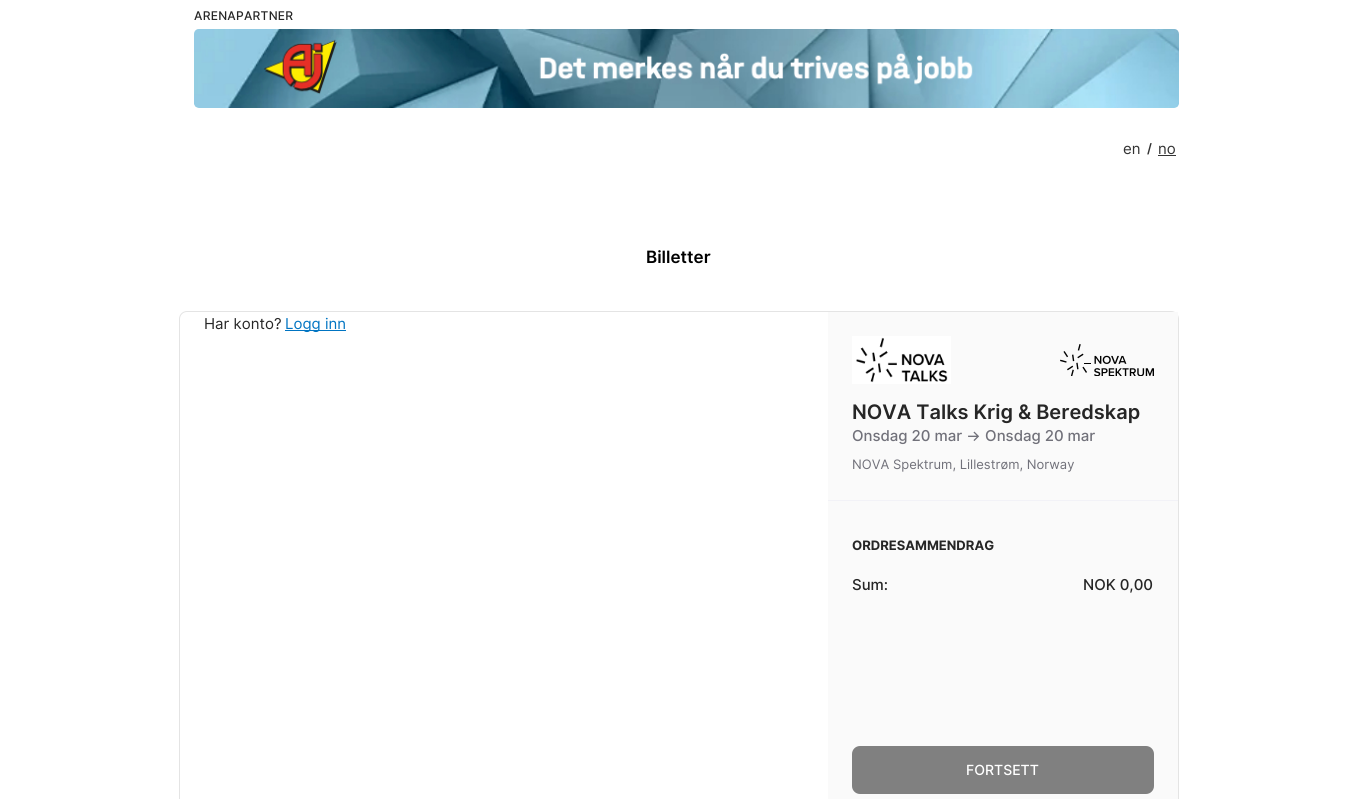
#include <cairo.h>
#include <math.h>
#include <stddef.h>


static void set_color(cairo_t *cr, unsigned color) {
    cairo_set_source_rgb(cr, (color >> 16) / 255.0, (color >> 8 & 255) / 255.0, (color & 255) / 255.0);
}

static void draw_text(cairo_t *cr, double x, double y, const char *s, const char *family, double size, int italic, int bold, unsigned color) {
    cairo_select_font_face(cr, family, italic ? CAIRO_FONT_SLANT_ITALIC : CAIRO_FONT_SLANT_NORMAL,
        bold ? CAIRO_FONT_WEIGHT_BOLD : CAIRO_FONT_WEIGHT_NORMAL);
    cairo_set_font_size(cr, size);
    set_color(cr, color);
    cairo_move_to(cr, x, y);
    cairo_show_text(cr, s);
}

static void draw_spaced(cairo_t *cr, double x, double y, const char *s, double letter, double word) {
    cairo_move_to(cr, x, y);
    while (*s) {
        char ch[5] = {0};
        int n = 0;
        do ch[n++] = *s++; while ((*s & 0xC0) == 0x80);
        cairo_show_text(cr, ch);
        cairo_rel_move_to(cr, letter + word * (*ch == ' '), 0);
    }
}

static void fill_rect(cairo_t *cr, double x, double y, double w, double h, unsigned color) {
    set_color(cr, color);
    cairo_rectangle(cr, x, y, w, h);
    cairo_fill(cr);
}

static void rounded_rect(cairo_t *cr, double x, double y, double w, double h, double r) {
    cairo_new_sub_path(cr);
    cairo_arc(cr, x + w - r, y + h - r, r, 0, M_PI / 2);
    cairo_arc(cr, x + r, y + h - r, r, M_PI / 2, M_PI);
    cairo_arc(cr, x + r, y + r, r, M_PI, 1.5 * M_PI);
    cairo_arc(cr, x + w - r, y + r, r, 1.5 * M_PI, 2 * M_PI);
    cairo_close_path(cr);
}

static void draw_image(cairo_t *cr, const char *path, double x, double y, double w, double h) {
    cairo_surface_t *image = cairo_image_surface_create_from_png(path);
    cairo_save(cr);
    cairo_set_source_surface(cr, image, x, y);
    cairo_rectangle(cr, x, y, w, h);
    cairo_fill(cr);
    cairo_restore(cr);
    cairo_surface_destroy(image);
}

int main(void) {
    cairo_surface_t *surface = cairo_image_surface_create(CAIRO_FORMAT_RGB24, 1357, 799);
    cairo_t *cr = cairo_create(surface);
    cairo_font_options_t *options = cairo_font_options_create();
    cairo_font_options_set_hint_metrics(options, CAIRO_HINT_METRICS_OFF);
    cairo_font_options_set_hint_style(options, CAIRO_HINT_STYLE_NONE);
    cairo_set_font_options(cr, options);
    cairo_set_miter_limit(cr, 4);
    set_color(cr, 0xFFFFFF);
    cairo_paint(cr);
    cairo_select_font_face(cr, "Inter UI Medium", CAIRO_FONT_SLANT_NORMAL, CAIRO_FONT_WEIGHT_NORMAL);
    cairo_set_font_size(cr, 12);
    set_color(cr, 0x262626);
    draw_spaced(cr, 194, 20, "ARENAPARTNER", 0.25, 0);
    draw_image(cr, "assets/img1.png", 194, 29, 985, 79);
    draw_text(cr, 1123, 154, "en", "Inter UI", 15, 0, 0, 0x333333);
    draw_text(cr, 1147, 153, "/", "Inter UI SemiBold", 13, 0, 0, 0x333333);
    draw_text(cr, 1158, 154, "no", "Inter UI", 15, 0, 0, 0x333333);
    fill_rect(cr, 1158, 155, 18, 1, 0x333333);
    draw_text(cr, 646, 263, "Billetter", "Inter UI SemiBold", 17, 0, 0, 0x000000);
    rounded_rect(cr, 179.5, 311.5, 999, 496, 7.5);
    set_color(cr, 0xE4E4E4);
    cairo_set_line_width(cr, 1);
    cairo_stroke(cr);
    draw_text(cr, 204, 329, "Har konto?", "Inter UI", 15, 0, 0, 0x262626);
    fill_rect(cr, 285, 330, 61, 1, 0x0074C2);
    draw_text(cr, 285, 329, "Logg inn", "Inter UI", 15, 0, 0, 0x0074C2);
    fill_rect(cr, 828, 312, 350, 487, 0xFAFAFA);
    draw_image(cr, "assets/img2.png", 852, 336, 99, 48);
    draw_image(cr, "assets/img3.png", 1060, 344, 94, 32);
    draw_text(cr, 852, 419, "NOVA Talks Krig & Beredskap", "Inter UI SemiBold", 20, 0, 0, 0x262626);
    draw_text(cr, 852, 441, "Onsdag 20 mar → Onsdag 20 mar", "Inter UI Medium", 15, 0, 0, 0x71717A);
    draw_text(cr, 852, 469, "NOVA Spektrum, Lillestrøm, Norway", "Inter UI", 13, 0, 0, 0x71717A);
    fill_rect(cr, 828, 500, 350, 1, 0xF2F2F7);
    draw_text(cr, 852, 550, "ORDRESAMMENDRAG", "Inter UI", 13, 0, 1, 0x262626);
    draw_text(cr, 852, 590, "Sum:", "Inter UI Medium", 15, 0, 0, 0x262626);
    draw_text(cr, 1083, 590, "NOK 0,00", "Inter UI Medium", 15, 0, 0, 0x262626);
    set_color(cr, 0x808080);
    rounded_rect(cr, 852, 746, 302, 48, 8);
    cairo_fill(cr);
    draw_text(cr, 966, 775, "FORTSETT", "Inter UI Medium", 14, 0, 0, 0xFFFFFF);
    cairo_surface_write_to_png(surface, "output.png");
    cairo_font_options_destroy(options);
    cairo_destroy(cr);
    cairo_surface_destroy(surface);
    return 0;
}
